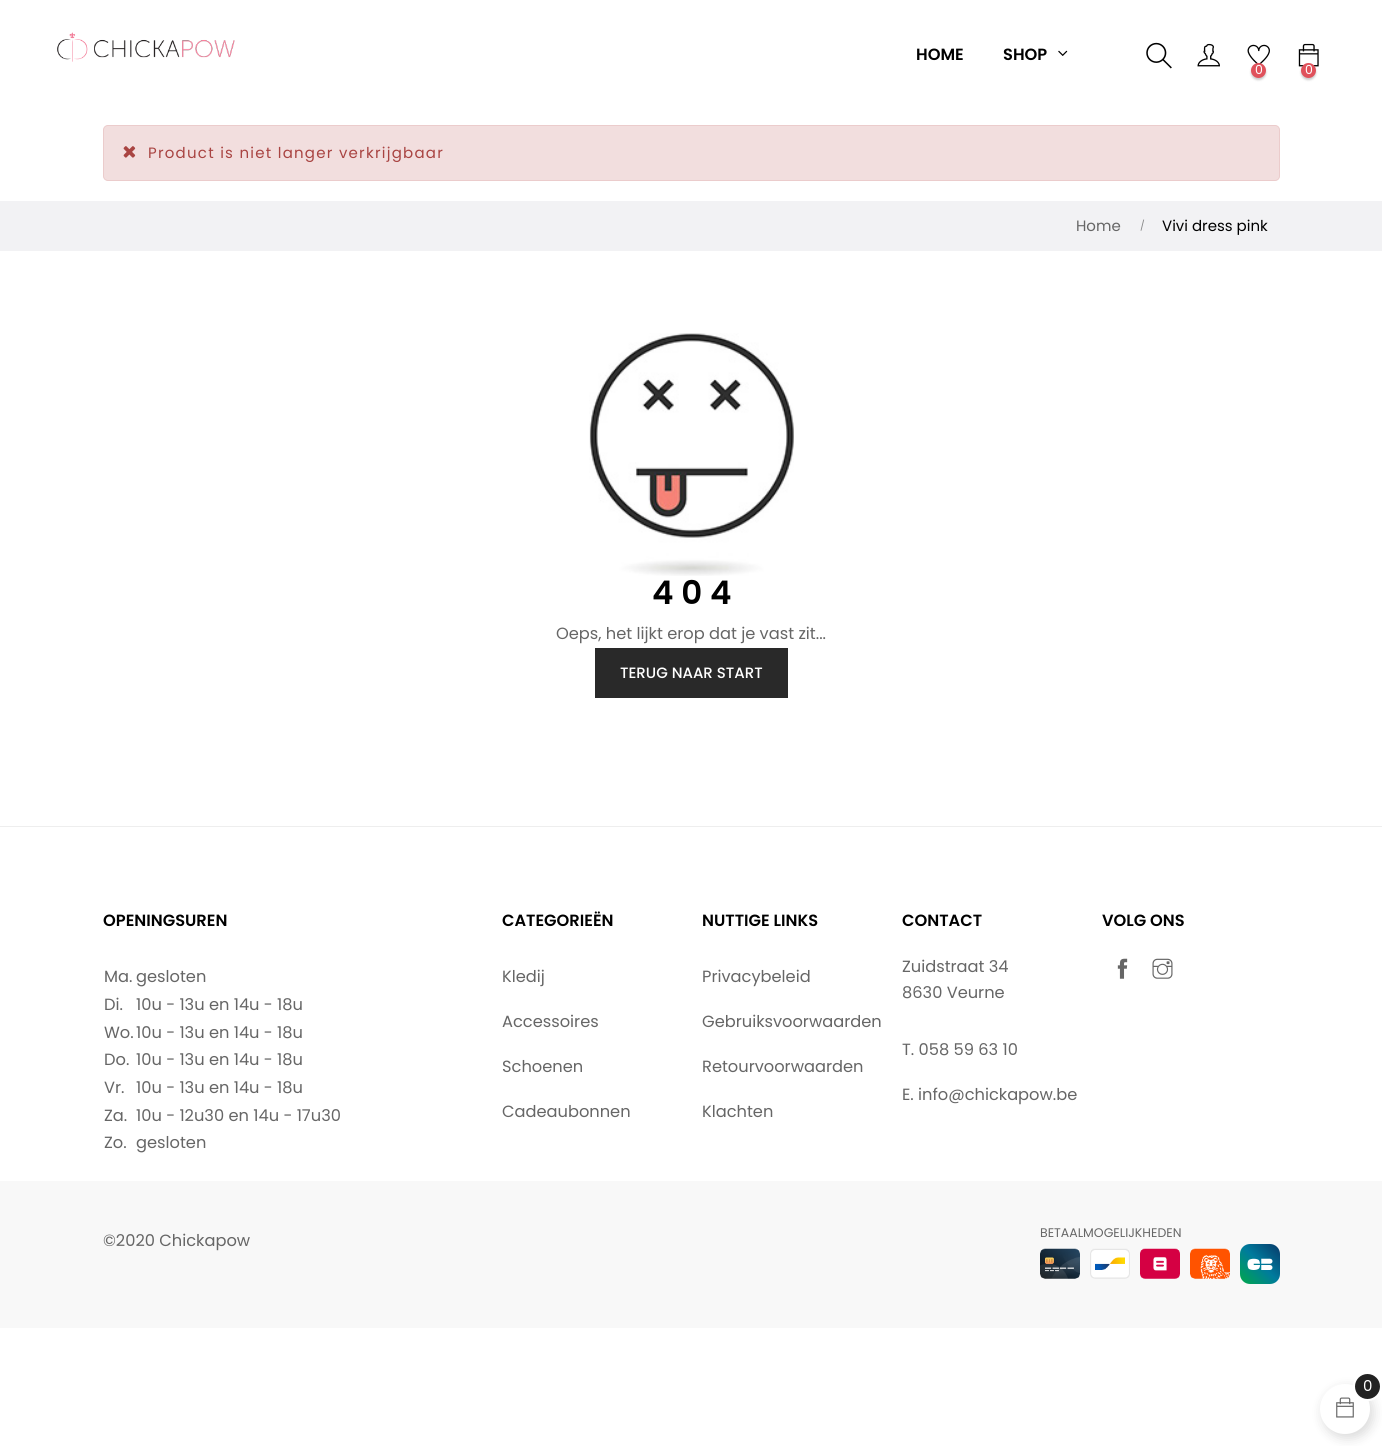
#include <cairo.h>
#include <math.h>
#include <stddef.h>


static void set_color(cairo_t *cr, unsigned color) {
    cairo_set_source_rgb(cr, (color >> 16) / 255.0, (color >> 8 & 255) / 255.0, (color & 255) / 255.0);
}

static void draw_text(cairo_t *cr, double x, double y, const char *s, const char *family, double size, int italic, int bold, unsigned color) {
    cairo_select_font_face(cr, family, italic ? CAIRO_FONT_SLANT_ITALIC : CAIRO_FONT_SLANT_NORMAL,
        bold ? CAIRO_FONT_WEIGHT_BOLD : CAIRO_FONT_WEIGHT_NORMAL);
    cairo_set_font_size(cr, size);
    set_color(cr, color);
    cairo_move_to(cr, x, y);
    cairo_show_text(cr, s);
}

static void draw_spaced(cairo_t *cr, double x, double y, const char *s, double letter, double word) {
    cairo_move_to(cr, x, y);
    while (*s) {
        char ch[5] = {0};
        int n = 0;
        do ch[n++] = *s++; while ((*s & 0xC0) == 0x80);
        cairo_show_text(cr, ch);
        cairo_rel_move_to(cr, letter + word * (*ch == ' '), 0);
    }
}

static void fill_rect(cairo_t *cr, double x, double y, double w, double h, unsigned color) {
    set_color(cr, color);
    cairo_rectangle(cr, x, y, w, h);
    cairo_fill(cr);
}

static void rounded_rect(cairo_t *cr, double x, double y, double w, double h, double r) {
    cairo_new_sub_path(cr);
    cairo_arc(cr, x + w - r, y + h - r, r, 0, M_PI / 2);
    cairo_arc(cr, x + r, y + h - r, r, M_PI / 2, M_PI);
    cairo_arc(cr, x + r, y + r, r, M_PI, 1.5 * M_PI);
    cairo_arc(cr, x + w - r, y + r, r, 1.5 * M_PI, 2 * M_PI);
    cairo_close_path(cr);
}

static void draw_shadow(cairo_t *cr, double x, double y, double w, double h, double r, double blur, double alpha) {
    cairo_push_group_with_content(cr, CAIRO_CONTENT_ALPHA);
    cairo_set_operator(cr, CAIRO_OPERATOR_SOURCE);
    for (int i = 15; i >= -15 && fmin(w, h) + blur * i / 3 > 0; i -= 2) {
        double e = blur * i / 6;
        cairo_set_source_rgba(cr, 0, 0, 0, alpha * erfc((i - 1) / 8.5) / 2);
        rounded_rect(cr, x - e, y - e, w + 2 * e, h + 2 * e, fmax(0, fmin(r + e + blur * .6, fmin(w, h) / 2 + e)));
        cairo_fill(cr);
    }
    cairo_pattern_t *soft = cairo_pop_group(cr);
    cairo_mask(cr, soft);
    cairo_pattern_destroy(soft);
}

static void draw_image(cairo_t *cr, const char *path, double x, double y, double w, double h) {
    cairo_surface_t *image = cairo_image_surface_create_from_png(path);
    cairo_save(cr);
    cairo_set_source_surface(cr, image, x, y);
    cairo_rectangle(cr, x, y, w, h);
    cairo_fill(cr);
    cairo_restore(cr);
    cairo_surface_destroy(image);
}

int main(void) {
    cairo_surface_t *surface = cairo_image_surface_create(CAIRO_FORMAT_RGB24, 1382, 1446);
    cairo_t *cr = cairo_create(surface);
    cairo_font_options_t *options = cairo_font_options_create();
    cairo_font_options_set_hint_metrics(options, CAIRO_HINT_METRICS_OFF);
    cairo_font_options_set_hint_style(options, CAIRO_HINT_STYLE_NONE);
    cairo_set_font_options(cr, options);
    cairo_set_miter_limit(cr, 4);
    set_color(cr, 0xFFFFFF);
    cairo_paint(cr);
    draw_image(cr, "assets/img1.png", 57, 32, 178, 30);
    draw_text(cr, 916, 60, "HOME", "Poppins SemiBold", 16.25, 0, 0, 0x000000);
    draw_text(cr, 1003, 60, "SHOP", "Poppins SemiBold", 16.25, 0, 0, 0x000000);
    draw_image(cr, "assets/img2.png", 1058, 50, 10, 6);
    draw_image(cr, "assets/img3.png", 1146, 42, 26, 27);
    draw_image(cr, "assets/img4.png", 1197, 43, 23, 24);
    draw_image(cr, "assets/img5.png", 1247, 44, 23, 20);
    set_color(cr, 0x000000);
    draw_shadow(cr, 1251, 65, 15, 15, 7.5, 1, 0.2);
    set_color(cr, 0xE0525C);
    cairo_arc(cr, 1258.5, 70.5, 7.5, 0, 2 * M_PI);
    cairo_fill(cr);
    draw_text(cr, 1255, 74, "0", "Poppins", 12.5, 0, 0, 0xFFFFFF);
    draw_image(cr, "assets/img6.png", 1298, 43, 21, 24);
    set_color(cr, 0x000000);
    draw_shadow(cr, 1301, 65, 15, 15, 7.5, 1, 0.2);
    set_color(cr, 0xE0525C);
    cairo_arc(cr, 1308.5, 70.5, 7.5, 0, 2 * M_PI);
    cairo_fill(cr);
    draw_text(cr, 1305, 74, "0", "Poppins", 12.5, 0, 0, 0xFFFFFF);
    set_color(cr, 0xF2DEDE);
    rounded_rect(cr, 103.5, 125.5, 1176, 55, 4.5);
    cairo_fill_preserve(cr);
    set_color(cr, 0xEBCCCC);
    cairo_set_line_width(cr, 1);
    cairo_stroke(cr);
    draw_image(cr, "assets/img7.png", 123, 146, 13, 12);
    cairo_set_font_size(cr, 15);
    set_color(cr, 0xA94442);
    draw_spaced(cr, 148, 158, "Product is niet langer verkrijgbaar", 1.25, 0);
    fill_rect(cr, 0, 201, 1382, 50, 0xF2F2F4);
    draw_text(cr, 1076, 231, "Home", "Poppins", 15, 0, 0, 0x666666);
    draw_text(cr, 1140, 229, "/", "Poppins", 10, 0, 0, 0x888888);
    draw_text(cr, 1162, 231, "Vivi dress pink", "Poppins", 15, 0, 0, 0x000000);
    draw_image(cr, "assets/img8.png", 589, 333, 205, 243);
    draw_text(cr, 652, 604, "4 0 4", "Poppins SemiBold", 32.5, 0, 0, 0x000000);
    draw_text(cr, 556, 639, "Oeps, het lijkt erop dat je vast zit...", "Poppins", 16.25, 0, 0, 0x666666);
    fill_rect(cr, 595, 648, 193, 50, 0x292929);
    draw_text(cr, 620, 678, "TERUG NAAR START", "Poppins Medium", 15, 0, 0, 0xFFFFFF);
    fill_rect(cr, 0, 826, 1382, 1, 0xEEEEEE);
    draw_text(cr, 103, 926, "OPENINGSUREN", "Poppins SemiBold", 16.25, 0, 0, 0x000000);
    draw_text(cr, 104, 982, "Ma.", "Poppins", 16.25, 0, 0, 0x666666);
    draw_text(cr, 136, 982, "gesloten", "Poppins", 16.25, 0, 0, 0x666666);
    draw_text(cr, 104, 1010, "Di.", "Poppins", 16.25, 0, 0, 0x666666);
    draw_text(cr, 136, 1010, "10u - 13u en 14u - 18u", "Poppins", 16.25, 0, 0, 0x666666);
    draw_text(cr, 104, 1038, "Wo.", "Poppins", 16.25, 0, 0, 0x666666);
    draw_text(cr, 136, 1038, "10u - 13u en 14u - 18u", "Poppins", 16.25, 0, 0, 0x666666);
    draw_text(cr, 104, 1065, "Do.", "Poppins", 16.25, 0, 0, 0x666666);
    draw_text(cr, 136, 1065, "10u - 13u en 14u - 18u", "Poppins", 16.25, 0, 0, 0x666666);
    draw_text(cr, 104, 1093, "Vr.", "Poppins", 16.25, 0, 0, 0x666666);
    draw_text(cr, 136, 1093, "10u - 13u en 14u - 18u", "Poppins", 16.25, 0, 0, 0x666666);
    draw_text(cr, 104, 1121, "Za.", "Poppins", 16.25, 0, 0, 0x666666);
    draw_text(cr, 136, 1121, "10u - 12u30 en 14u - 17u30", "Poppins", 16.25, 0, 0, 0x666666);
    draw_text(cr, 104, 1148, "Zo.", "Poppins", 16.25, 0, 0, 0x666666);
    draw_text(cr, 136, 1148, "gesloten", "Poppins", 16.25, 0, 0, 0x666666);
    draw_text(cr, 502, 926, "CATEGORIEËN", "Poppins SemiBold", 16.25, 0, 0, 0x000000);
    draw_text(cr, 502, 982, "Kledij", "Poppins", 16.25, 0, 0, 0x666666);
    draw_text(cr, 502, 1027, "Accessoires", "Poppins", 16.25, 0, 0, 0x666666);
    draw_text(cr, 502, 1072, "Schoenen", "Poppins", 16.25, 0, 0, 0x666666);
    draw_text(cr, 502, 1117, "Cadeaubonnen", "Poppins", 16.25, 0, 0, 0x666666);
    draw_text(cr, 702, 926, "NUTTIGE LINKS", "Poppins SemiBold", 16.25, 0, 0, 0x000000);
    draw_text(cr, 702, 982, "Privacybeleid", "Poppins", 16.25, 0, 0, 0x666666);
    draw_text(cr, 702, 1027, "Gebruiksvoorwaarden", "Poppins", 16.25, 0, 0, 0x666666);
    draw_text(cr, 702, 1072, "Retourvoorwaarden", "Poppins", 16.25, 0, 0, 0x666666);
    draw_text(cr, 702, 1117, "Klachten", "Poppins", 16.25, 0, 0, 0x666666);
    draw_text(cr, 902, 926, "CONTACT", "Poppins SemiBold", 16.25, 0, 0, 0x000000);
    draw_text(cr, 902, 972, "Zuidstraat 34", "Poppins", 16.25, 0, 0, 0x666666);
    draw_text(cr, 902, 998, "8630 Veurne", "Poppins", 16.25, 0, 0, 0x666666);
    draw_text(cr, 902, 1055, "T. 058 59 63 10", "Poppins", 16.25, 0, 0, 0x666666);
    draw_text(cr, 902, 1100, "E. info@chickapow.be", "Poppins", 16.25, 0, 0, 0x666666);
    draw_text(cr, 1102, 926, "VOLG ONS", "Poppins SemiBold", 16.25, 0, 0, 0x000000);
    draw_image(cr, "assets/img9.png", 1117, 958, 11, 21);
    draw_image(cr, "assets/img10.png", 1152, 958, 21, 21);
    fill_rect(cr, 0, 1181, 1382, 147, 0xF8F8F8);
    draw_text(cr, 103, 1246, "©2020 Chickapow", "Poppins", 16.25, 0, 0, 0x666666);
    draw_text(cr, 1040, 1237, "BETAALMOGELIJKHEDEN", "Poppins", 12.5, 0, 0, 0x666666);
    draw_image(cr, "assets/img11.png", 1040, 1248, 40, 31);
    draw_image(cr, "assets/img12.png", 1090, 1248, 40, 31);
    draw_image(cr, "assets/img13.png", 1140, 1248, 40, 31);
    draw_image(cr, "assets/img14.png", 1190, 1248, 40, 31);
    draw_image(cr, "assets/img15.png", 1240, 1244, 40, 40);
    set_color(cr, 0x000000);
    draw_shadow(cr, 1323, 1388, 50, 50, 25, 6, 0.15);
    set_color(cr, 0xFFFFFF);
    cairo_arc(cr, 1345, 1409, 25, 0, 2 * M_PI);
    cairo_fill(cr);
    draw_image(cr, "assets/img16.png", 1336, 1397, 18, 21);
    cairo_arc(cr, 1368, 1386, 13.5, 0, 2 * M_PI);
    cairo_set_line_width(cr, 3);
    cairo_stroke(cr);
    set_color(cr, 0x222222);
    cairo_arc(cr, 1367.5, 1386.5, 12.5, 0, 2 * M_PI);
    cairo_fill(cr);
    draw_text(cr, 1363, 1391, "0", "Poppins", 15, 0, 0, 0xFFFFFF);
    cairo_surface_write_to_png(surface, "output.png");
    cairo_font_options_destroy(options);
    cairo_destroy(cr);
    cairo_surface_destroy(surface);
    return 0;
}
